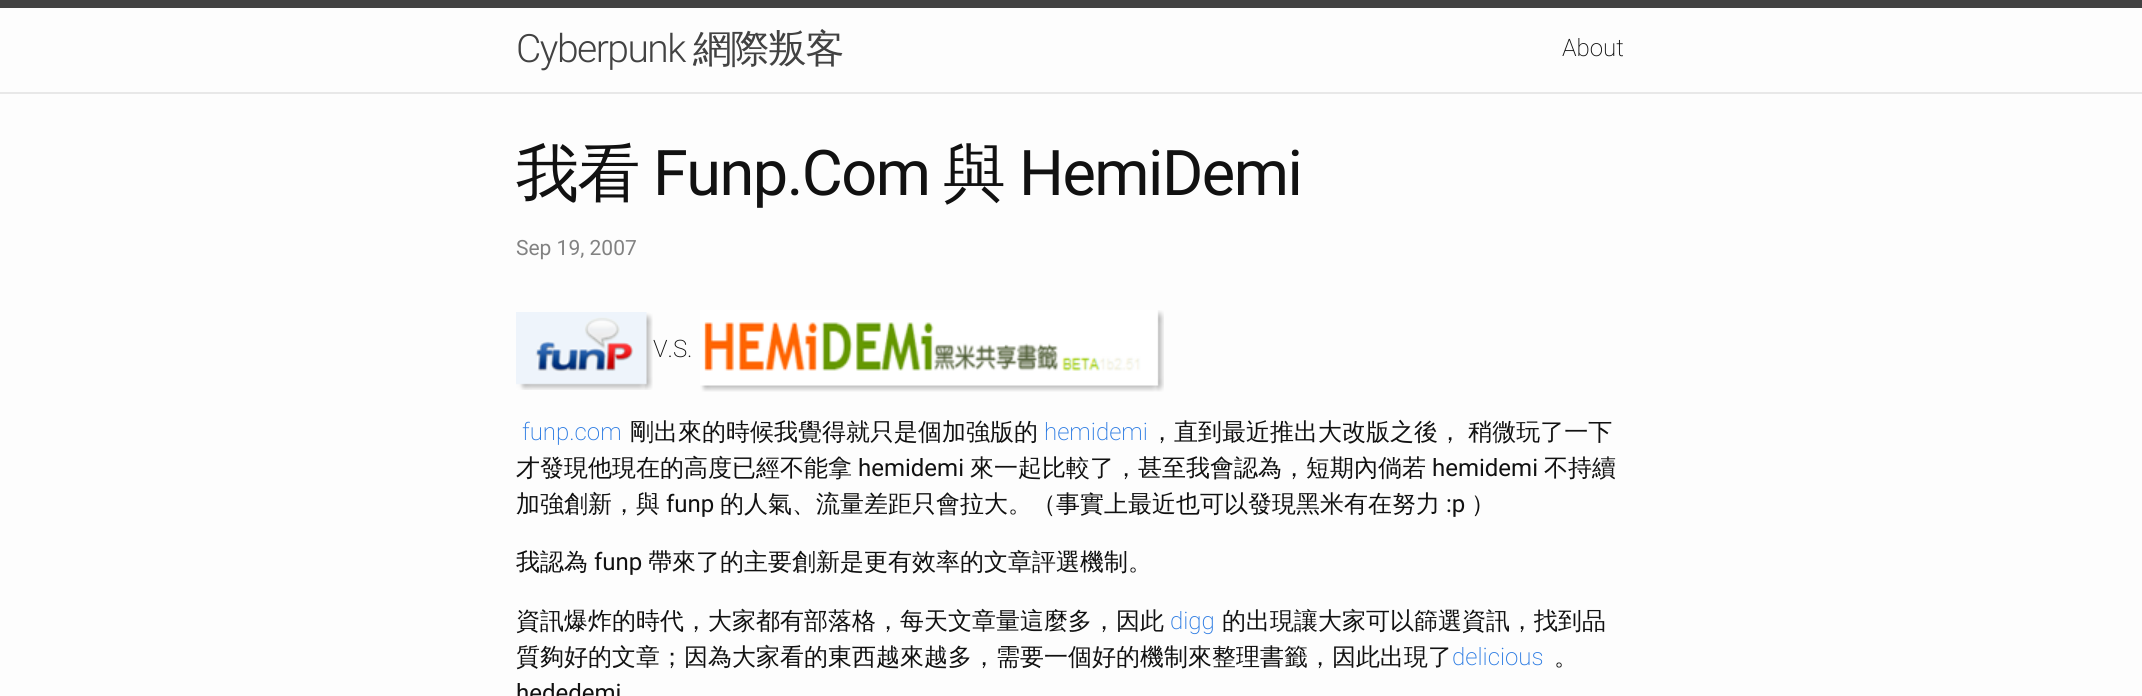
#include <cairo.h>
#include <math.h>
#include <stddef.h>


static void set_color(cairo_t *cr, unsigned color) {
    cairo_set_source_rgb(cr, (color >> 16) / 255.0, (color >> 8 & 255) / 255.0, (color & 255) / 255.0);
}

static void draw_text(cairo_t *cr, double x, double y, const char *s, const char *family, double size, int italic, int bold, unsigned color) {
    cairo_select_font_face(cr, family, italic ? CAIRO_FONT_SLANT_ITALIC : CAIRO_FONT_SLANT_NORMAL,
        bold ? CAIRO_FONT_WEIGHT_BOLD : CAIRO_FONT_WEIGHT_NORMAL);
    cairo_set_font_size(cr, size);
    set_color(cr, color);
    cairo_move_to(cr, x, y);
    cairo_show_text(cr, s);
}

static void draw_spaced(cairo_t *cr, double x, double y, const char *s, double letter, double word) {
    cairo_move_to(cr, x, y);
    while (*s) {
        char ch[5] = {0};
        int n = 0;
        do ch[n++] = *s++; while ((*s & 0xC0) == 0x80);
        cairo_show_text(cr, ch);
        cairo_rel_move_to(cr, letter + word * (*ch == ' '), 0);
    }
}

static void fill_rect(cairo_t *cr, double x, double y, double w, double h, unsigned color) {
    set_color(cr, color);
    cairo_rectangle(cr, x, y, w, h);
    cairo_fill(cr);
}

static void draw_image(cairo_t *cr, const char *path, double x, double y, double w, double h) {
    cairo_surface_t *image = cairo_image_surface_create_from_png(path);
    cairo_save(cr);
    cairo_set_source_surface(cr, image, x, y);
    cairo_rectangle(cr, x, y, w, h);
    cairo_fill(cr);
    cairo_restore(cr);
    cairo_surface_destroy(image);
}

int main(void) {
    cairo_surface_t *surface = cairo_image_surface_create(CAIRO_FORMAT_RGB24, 2142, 696);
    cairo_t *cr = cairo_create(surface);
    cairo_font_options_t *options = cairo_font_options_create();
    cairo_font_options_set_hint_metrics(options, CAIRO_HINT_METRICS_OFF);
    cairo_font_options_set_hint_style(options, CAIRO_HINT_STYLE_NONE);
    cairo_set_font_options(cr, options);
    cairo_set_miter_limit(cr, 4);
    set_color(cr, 0xFDFDFD);
    cairo_paint(cr);
    fill_rect(cr, 0, 0, 2142, 8, 0x424242);
    fill_rect(cr, 0, 92, 2142, 2, 0xE8E8E8);
    cairo_select_font_face(cr, "Roboto Light", CAIRO_FONT_SLANT_NORMAL, CAIRO_FONT_WEIGHT_NORMAL);
    cairo_set_font_size(cr, 39);
    set_color(cr, 0x424242);
    draw_spaced(cr, 516, 62, "Cyberpunk", -1.5, 0);
    cairo_select_font_face(cr, "WenQuanYi Zen Hei Medium", CAIRO_FONT_SLANT_NORMAL, CAIRO_FONT_WEIGHT_NORMAL);
    draw_spaced(cr, 693, 62, "網際叛客", -1.5, 0);
    draw_text(cr, 1562, 56, "About", "Roboto ExtraLight", 24, 0, 0, 0x111111);
    cairo_select_font_face(cr, "WenQuanYi Zen Hei Medium", CAIRO_FONT_SLANT_NORMAL, CAIRO_FONT_WEIGHT_NORMAL);
    cairo_set_font_size(cr, 63);
    draw_spaced(cr, 516, 195, "我看", -1.5, 0);
    cairo_select_font_face(cr, "Roboto", CAIRO_FONT_SLANT_NORMAL, CAIRO_FONT_WEIGHT_NORMAL);
    draw_spaced(cr, 653, 195, "Funp.Com", -1.5, 0);
    cairo_select_font_face(cr, "WenQuanYi Zen Hei Medium", CAIRO_FONT_SLANT_NORMAL, CAIRO_FONT_WEIGHT_NORMAL);
    draw_spaced(cr, 943, 195, "與", -1.5, 0);
    cairo_select_font_face(cr, "Roboto", CAIRO_FONT_SLANT_NORMAL, CAIRO_FONT_WEIGHT_NORMAL);
    draw_spaced(cr, 1019, 195, "HemiDemi", -1.5, 0);
    draw_text(cr, 516, 255, "Sep 19, 2007", "Roboto", 21, 0, 0, 0x828282);
    draw_image(cr, "assets/img1.png", 516, 312, 137, 78);
    draw_text(cr, 653, 357, "V.S.", "Roboto ExtraLight", 24, 0, 0, 0x111111);
    draw_image(cr, "assets/img2.png", 700, 310, 464, 82);
    draw_text(cr, 522, 440, "funp.com", "Roboto ExtraLight", 24, 0, 0, 0x2A7AE2);
    draw_text(cr, 630, 440, "剛出來的時候我覺得就只是個加強版的", "WenQuanYi Zen Hei Medium", 24, 0, 0, 0x111111);
    draw_text(cr, 1044, 440, "hemidemi", "Roboto ExtraLight", 24, 0, 0, 0x2A7AE2);
    cairo_select_font_face(cr, "WenQuanYi Zen Hei Medium", CAIRO_FONT_SLANT_NORMAL, CAIRO_FONT_WEIGHT_NORMAL);
    set_color(cr, 0x111111);
    draw_spaced(cr, 1150, 440, "，直到最近推出大改版之後， 稍微玩了一下", 0, -1);
    draw_text(cr, 516, 476, "才發現他現在的高度已經不能拿", "WenQuanYi Zen Hei Medium", 24, 0, 0, 0x111111);
    draw_text(cr, 858, 476, "hemidemi", "Roboto", 24, 0, 0, 0x111111);
    draw_text(cr, 970, 476, "來一起比較了，甚至我會認為，短期內倘若", "WenQuanYi Zen Hei Medium", 24, 0, 0, 0x111111);
    draw_text(cr, 1432, 476, "hemidemi", "Roboto", 24, 0, 0, 0x111111);
    draw_text(cr, 1544, 476, "不持續", "WenQuanYi Zen Hei Medium", 24, 0, 0, 0x111111);
    draw_text(cr, 516, 512, "加強創新，與", "WenQuanYi Zen Hei Medium", 24, 0, 0, 0x111111);
    draw_text(cr, 666, 512, "funp", "Roboto", 24, 0, 0, 0x111111);
    draw_text(cr, 720, 512, "的人氣、流量差距只會拉大。（事實上最近也可以發現黑米有在努力", "WenQuanYi Zen Hei Medium", 24, 0, 0, 0x111111);
    draw_text(cr, 1446, 512, ":p", "Roboto", 24, 0, 0, 0x111111);
    draw_text(cr, 1471, 512, "）", "WenQuanYi Zen Hei Medium", 24, 0, 0, 0x111111);
    draw_text(cr, 516, 570, "我認為", "WenQuanYi Zen Hei Medium", 24, 0, 0, 0x111111);
    draw_text(cr, 594, 570, "funp", "Roboto", 24, 0, 0, 0x111111);
    draw_text(cr, 648, 570, "帶來了的主要創新是更有效率的文章評選機制。", "WenQuanYi Zen Hei Medium", 24, 0, 0, 0x111111);
    draw_text(cr, 516, 629, "資訊爆炸的時代，大家都有部落格，每天文章量這麼多，因此", "WenQuanYi Zen Hei Medium", 24, 0, 0, 0x111111);
    draw_text(cr, 1170, 629, "digg", "Roboto ExtraLight", 24, 0, 0, 0x2A7AE2);
    draw_text(cr, 1222, 629, "的出現讓大家可以篩選資訊，找到品", "WenQuanYi Zen Hei Medium", 24, 0, 0, 0x111111);
    draw_text(cr, 516, 665, "質夠好的文章；因為大家看的東西越來越多，需要一個好的機制來整理書籤，因此出現了", "WenQuanYi Zen Hei Medium", 24, 0, 0, 0x111111);
    draw_text(cr, 1452, 665, "delicious", "Roboto ExtraLight", 24, 0, 0, 0x2A7AE2);
    draw_text(cr, 1554, 665, "。", "WenQuanYi Zen Hei Medium", 24, 0, 0, 0x111111);
    draw_text(cr, 516, 701, "hededemi", "Roboto", 24, 0, 0, 0x111111);
    cairo_surface_write_to_png(surface, "output.png");
    cairo_font_options_destroy(options);
    cairo_destroy(cr);
    cairo_surface_destroy(surface);
    return 0;
}
